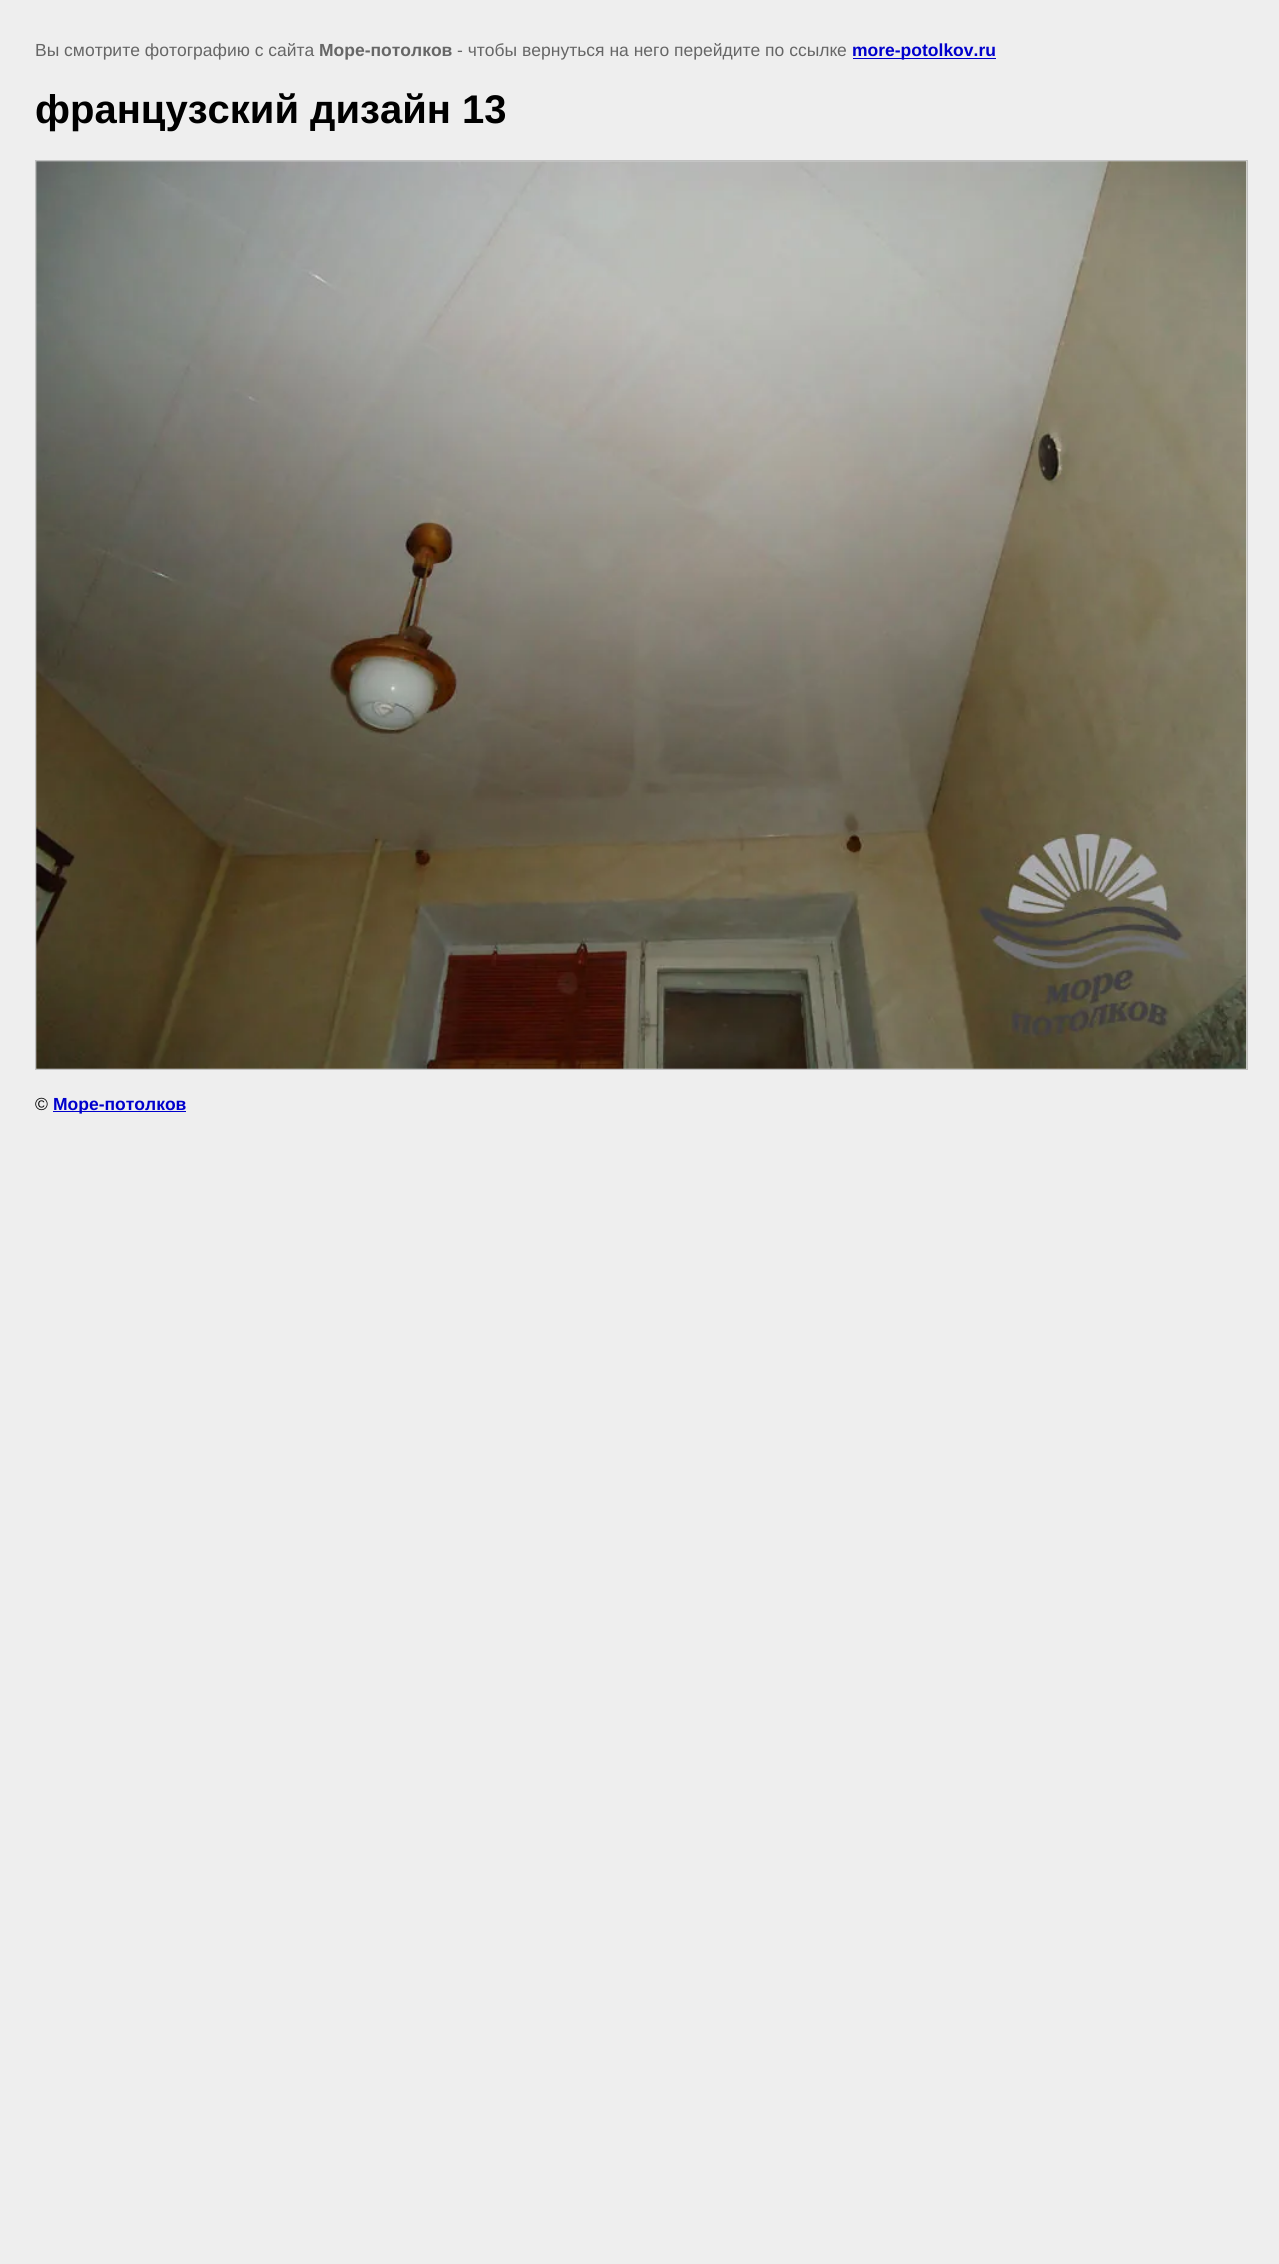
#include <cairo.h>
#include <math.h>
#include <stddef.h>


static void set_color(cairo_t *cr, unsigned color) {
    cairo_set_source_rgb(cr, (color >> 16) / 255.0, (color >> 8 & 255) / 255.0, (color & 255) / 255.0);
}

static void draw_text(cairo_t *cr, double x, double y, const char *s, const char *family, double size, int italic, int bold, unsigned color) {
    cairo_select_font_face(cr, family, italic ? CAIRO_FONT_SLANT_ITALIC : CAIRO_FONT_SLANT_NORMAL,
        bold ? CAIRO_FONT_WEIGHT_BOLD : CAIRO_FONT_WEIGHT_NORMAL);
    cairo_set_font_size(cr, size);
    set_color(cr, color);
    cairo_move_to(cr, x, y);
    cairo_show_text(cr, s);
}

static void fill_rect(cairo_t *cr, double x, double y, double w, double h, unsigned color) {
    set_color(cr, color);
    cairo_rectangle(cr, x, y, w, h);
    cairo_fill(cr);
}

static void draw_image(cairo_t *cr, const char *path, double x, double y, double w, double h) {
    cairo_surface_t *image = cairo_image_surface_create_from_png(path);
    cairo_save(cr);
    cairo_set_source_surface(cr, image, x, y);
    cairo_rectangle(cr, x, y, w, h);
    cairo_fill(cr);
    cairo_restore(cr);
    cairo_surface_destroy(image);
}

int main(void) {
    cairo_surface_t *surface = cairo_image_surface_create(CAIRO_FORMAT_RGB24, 1279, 2264);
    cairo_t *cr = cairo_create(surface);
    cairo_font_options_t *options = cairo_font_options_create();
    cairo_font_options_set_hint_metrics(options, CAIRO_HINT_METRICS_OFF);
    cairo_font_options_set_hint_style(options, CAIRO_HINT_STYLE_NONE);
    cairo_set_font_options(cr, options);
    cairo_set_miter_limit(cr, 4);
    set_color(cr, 0xEEEEEE);
    cairo_paint(cr);
    draw_text(cr, 35, 56, "Вы смотрите фотографию с сайта", "Liberation Sans", 17.5, 0, 0, 0x666666);
    draw_text(cr, 319, 56, "Море-потолков", "Liberation Sans", 17.5, 0, 1, 0x666666);
    draw_text(cr, 457, 56, "- чтобы вернуться на него перейдите по ссылке", "Liberation Sans", 17.5, 0, 0, 0x666666);
    fill_rect(cr, 853, 58, 143, 1, 0x0000CC);
    draw_text(cr, 852, 56, "more-potolkov.ru", "Liberation Sans", 17.5, 0, 1, 0x0000CC);
    draw_text(cr, 35, 123, "французский дизайн 13", "Liberation Sans", 40, 0, 1, 0x000000);
    cairo_rectangle(cr, 35.5, 160.5, 1212, 909);
    set_color(cr, 0xC0C0C0);
    cairo_set_line_width(cr, 1);
    cairo_stroke(cr);
    draw_image(cr, "assets/img1.png", 36, 161, 1211, 908);
    draw_text(cr, 35, 1110, "©", "Liberation Sans", 17.5, 0, 0, 0x000000);
    fill_rect(cr, 53, 1111, 133, 1, 0x0000CC);
    draw_text(cr, 53, 1110, "Море-потолков", "Liberation Sans", 17.5, 0, 1, 0x0000CC);
    cairo_surface_write_to_png(surface, "output.png");
    cairo_font_options_destroy(options);
    cairo_destroy(cr);
    cairo_surface_destroy(surface);
    return 0;
}
